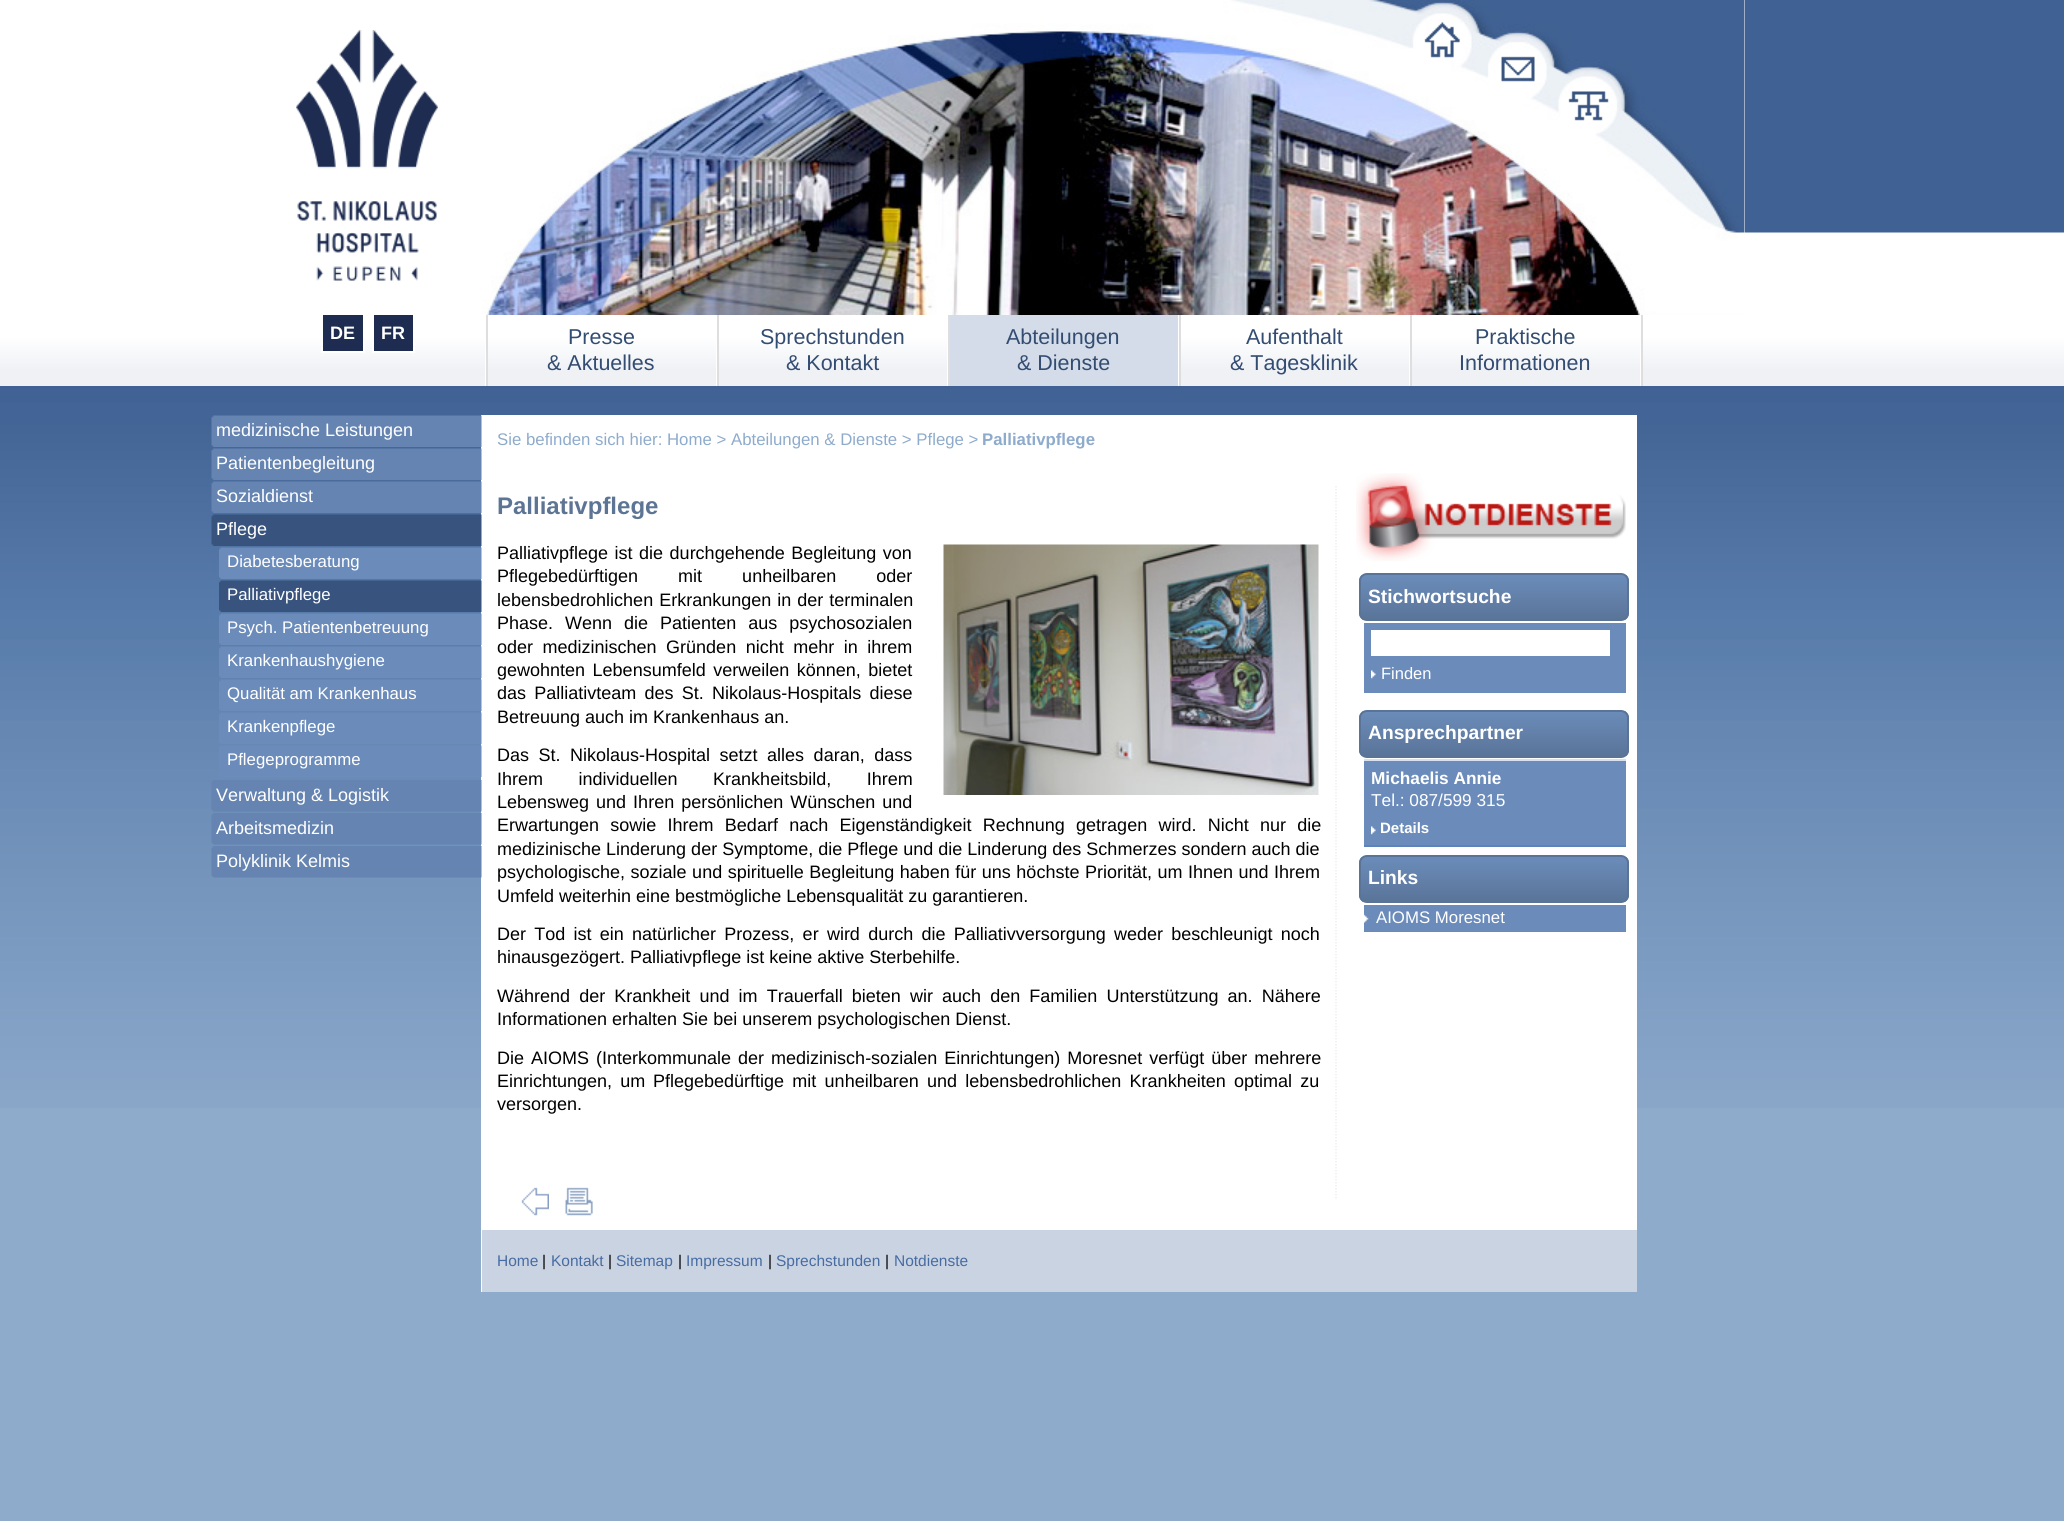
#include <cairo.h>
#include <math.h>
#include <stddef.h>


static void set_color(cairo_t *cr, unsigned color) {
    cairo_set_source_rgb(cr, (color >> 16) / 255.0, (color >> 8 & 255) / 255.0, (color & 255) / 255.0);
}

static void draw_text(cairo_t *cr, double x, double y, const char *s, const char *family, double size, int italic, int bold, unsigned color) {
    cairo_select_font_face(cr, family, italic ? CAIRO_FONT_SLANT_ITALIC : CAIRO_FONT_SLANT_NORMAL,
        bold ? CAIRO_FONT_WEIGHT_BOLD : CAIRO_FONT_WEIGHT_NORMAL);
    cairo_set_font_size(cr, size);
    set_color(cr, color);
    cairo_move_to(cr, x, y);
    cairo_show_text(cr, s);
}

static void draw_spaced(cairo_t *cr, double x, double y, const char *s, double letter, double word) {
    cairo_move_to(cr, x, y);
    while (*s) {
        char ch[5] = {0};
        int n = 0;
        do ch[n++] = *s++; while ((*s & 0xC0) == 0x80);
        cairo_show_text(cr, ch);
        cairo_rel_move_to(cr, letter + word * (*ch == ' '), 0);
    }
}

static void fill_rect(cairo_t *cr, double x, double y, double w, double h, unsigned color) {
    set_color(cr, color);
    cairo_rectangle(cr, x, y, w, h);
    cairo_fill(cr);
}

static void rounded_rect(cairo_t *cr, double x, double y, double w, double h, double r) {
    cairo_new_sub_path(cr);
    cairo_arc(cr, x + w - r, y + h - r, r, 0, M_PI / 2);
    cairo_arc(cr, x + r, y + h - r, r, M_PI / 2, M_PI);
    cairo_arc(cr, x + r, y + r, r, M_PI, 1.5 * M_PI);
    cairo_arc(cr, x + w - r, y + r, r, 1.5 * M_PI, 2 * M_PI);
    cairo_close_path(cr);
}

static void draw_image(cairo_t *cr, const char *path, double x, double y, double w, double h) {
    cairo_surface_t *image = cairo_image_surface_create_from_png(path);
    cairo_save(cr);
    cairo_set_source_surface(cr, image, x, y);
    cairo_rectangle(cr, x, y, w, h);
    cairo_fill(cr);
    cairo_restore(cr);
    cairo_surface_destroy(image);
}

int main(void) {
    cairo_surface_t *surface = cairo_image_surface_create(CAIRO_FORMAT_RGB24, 2064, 1521);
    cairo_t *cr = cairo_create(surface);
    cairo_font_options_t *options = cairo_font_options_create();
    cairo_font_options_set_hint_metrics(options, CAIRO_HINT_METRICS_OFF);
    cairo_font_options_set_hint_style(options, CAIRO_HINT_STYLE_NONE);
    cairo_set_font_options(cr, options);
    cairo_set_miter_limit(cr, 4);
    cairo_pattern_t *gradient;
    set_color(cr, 0x8EABCC);
    cairo_paint(cr);
    draw_image(cr, "assets/img1.png", 0, 386, 2064, 722);
    draw_image(cr, "assets/img2.png", 1745, 0, 319, 315);
    fill_rect(cr, 0, 0, 1745, 315, 0xFFFFFF);
    draw_image(cr, "assets/img3.png", 482, 0, 1263, 315);
    draw_image(cr, "assets/img4.png", 1424, 22, 36, 36);
    draw_image(cr, "assets/img5.png", 1501, 56, 34, 26);
    draw_image(cr, "assets/img6.png", 1568, 91, 41, 30);
    draw_image(cr, "assets/img7.png", 296, 30, 142, 251);
    gradient = cairo_pattern_create_linear(1032, 315, 1032, 386);
    cairo_pattern_add_color_stop_rgba(gradient, 0, 1, 1, 1, 1);
    cairo_pattern_add_color_stop_rgba(gradient, 0.3, 1, 1, 1, 1);
    cairo_pattern_add_color_stop_rgba(gradient, 0.78, 0.937, 0.945, 0.961, 1);
    cairo_pattern_add_color_stop_rgba(gradient, 1, 0.937, 0.945, 0.961, 1);
    cairo_set_source(cr, gradient);
    cairo_pattern_destroy(gradient);
    cairo_rectangle(cr, 0, 315, 2064, 71);
    cairo_fill(cr);
    fill_rect(cr, 323, 315, 40, 36, 0x1D2C50);
    fill_rect(cr, 363, 342, 2, 11, 0xFFFFFF);
    fill_rect(cr, 321, 351, 44, 2, 0xFFFFFF);
    fill_rect(cr, 321, 342, 2, 11, 0xFFFFFF);
    draw_text(cr, 330, 339, "DE", "Liberation Sans", 18, 0, 1, 0xFFFFFF);
    fill_rect(cr, 374, 315, 39, 36, 0x1D2C50);
    fill_rect(cr, 413, 342, 2, 11, 0xFFFFFF);
    fill_rect(cr, 372, 351, 42, 2, 0xFFFFFF);
    fill_rect(cr, 372, 342, 2, 11, 0xFFFFFF);
    draw_text(cr, 381, 339, "FR", "Liberation Sans", 18, 0, 1, 0xFFFFFF);
    fill_rect(cr, 1641, 315, 2, 71, 0xDEDEDE);
    fill_rect(cr, 485, 342, 1, 44, 0xFFFFFF);
    fill_rect(cr, 716, 342, 1, 44, 0xFFFFFF);
    fill_rect(cr, 486, 315, 2, 71, 0xDEDEDE);
    draw_text(cr, 568, 344, "Presse", "Liberation Sans", 21.5, 0, 0, 0x334D72);
    draw_text(cr, 547, 370, "& Aktuelles", "Liberation Sans", 21.5, 0, 0, 0x334D72);
    fill_rect(cr, 947, 342, 1, 44, 0xFFFFFF);
    fill_rect(cr, 717, 315, 2, 71, 0xDEDEDE);
    draw_text(cr, 760, 344, "Sprechstunden", "Liberation Sans", 21.5, 0, 0, 0x334D72);
    draw_text(cr, 786, 370, "& Kontakt", "Liberation Sans", 21.5, 0, 0, 0x334D72);
    fill_rect(cr, 1178, 342, 1, 44, 0xFFFFFF);
    fill_rect(cr, 948, 315, 2, 71, 0xDEDEDE);
    fill_rect(cr, 950, 315, 228, 71, 0xD3DCE8);
    draw_text(cr, 1006, 344, "Abteilungen", "Liberation Sans", 21.5, 0, 0, 0x334D72);
    draw_text(cr, 1017, 370, "& Dienste", "Liberation Sans", 21.5, 0, 0, 0x334D72);
    fill_rect(cr, 1409, 342, 1, 44, 0xFFFFFF);
    fill_rect(cr, 1179, 315, 2, 71, 0xDEDEDE);
    draw_text(cr, 1246, 344, "Aufenthalt", "Liberation Sans", 21.5, 0, 0, 0x334D72);
    draw_text(cr, 1230, 370, "& Tagesklinik", "Liberation Sans", 21.5, 0, 0, 0x334D72);
    fill_rect(cr, 1640, 342, 1, 44, 0xFFFFFF);
    fill_rect(cr, 1410, 315, 2, 71, 0xDEDEDE);
    draw_text(cr, 1475, 344, "Praktische", "Liberation Sans", 21.5, 0, 0, 0x334D72);
    draw_text(cr, 1459, 370, "Informationen", "Liberation Sans", 21.5, 0, 0, 0x334D72);
    fill_rect(cr, 481, 415, 1156, 877, 0xFFFFFF);
    draw_image(cr, "assets/img8.png", 211, 415, 271, 32);
    draw_text(cr, 216, 436, "medizinische Leistungen", "Liberation Sans", 18, 0, 0, 0xFFFFFF);
    draw_image(cr, "assets/img9.png", 211, 448, 271, 32);
    draw_text(cr, 216, 469, "Patientenbegleitung", "Liberation Sans", 18, 0, 0, 0xFFFFFF);
    draw_image(cr, "assets/img10.png", 211, 481, 271, 32);
    draw_text(cr, 216, 502, "Sozialdienst", "Liberation Sans", 18, 0, 0, 0xFFFFFF);
    draw_image(cr, "assets/img11.png", 211, 514, 271, 32);
    draw_text(cr, 216, 535, "Pflege", "Liberation Sans", 18, 0, 0, 0xFFFFFF);
    draw_image(cr, "assets/img12.png", 219, 547, 263, 32);
    draw_text(cr, 227, 567, "Diabetesberatung", "Liberation Sans", 16.8, 0, 0, 0xFFFFFF);
    draw_image(cr, "assets/img13.png", 219, 580, 263, 32);
    draw_text(cr, 227, 600, "Palliativpflege", "Liberation Sans", 16.8, 0, 0, 0xFFFFFF);
    draw_image(cr, "assets/img14.png", 219, 613, 263, 32);
    draw_text(cr, 227, 633, "Psych. Patientenbetreuung", "Liberation Sans", 16.8, 0, 0, 0xFFFFFF);
    draw_image(cr, "assets/img15.png", 219, 646, 263, 32);
    draw_text(cr, 227, 666, "Krankenhaushygiene", "Liberation Sans", 16.8, 0, 0, 0xFFFFFF);
    draw_image(cr, "assets/img16.png", 219, 679, 263, 32);
    draw_text(cr, 227, 699, "Qualität am Krankenhaus", "Liberation Sans", 16.8, 0, 0, 0xFFFFFF);
    draw_image(cr, "assets/img17.png", 219, 712, 263, 32);
    draw_text(cr, 227, 732, "Krankenpflege", "Liberation Sans", 16.8, 0, 0, 0xFFFFFF);
    draw_image(cr, "assets/img18.png", 219, 745, 263, 32);
    draw_text(cr, 227, 765, "Pflegeprogramme", "Liberation Sans", 16.8, 0, 0, 0xFFFFFF);
    draw_image(cr, "assets/img19.png", 211, 780, 271, 32);
    draw_text(cr, 216, 801, "Verwaltung & Logistik", "Liberation Sans", 18, 0, 0, 0xFFFFFF);
    draw_image(cr, "assets/img20.png", 211, 813, 271, 32);
    draw_text(cr, 216, 834, "Arbeitsmedizin", "Liberation Sans", 18, 0, 0, 0xFFFFFF);
    draw_image(cr, "assets/img21.png", 211, 846, 271, 32);
    draw_text(cr, 216, 867, "Polyklinik Kelmis", "Liberation Sans", 18, 0, 0, 0xFFFFFF);
    draw_text(cr, 497, 445, "Sie befinden sich hier: Home > Abteilungen & Dienste > Pflege >", "Liberation Sans", 16.8, 0, 0, 0x8EABCC);
    draw_text(cr, 982, 445, "Palliativpflege", "Liberation Sans", 16.8, 0, 1, 0x8EABCC);
    cairo_new_path(cr);
    cairo_move_to(cr, 1336, 486);
    cairo_line_to(cr, 1336, 1200);
    set_color(cr, 0xEDF0F5);
    cairo_set_line_width(cr, 1.5);
    cairo_set_dash(cr, (double[]){1.5, 1.5}, 2, 0);
    cairo_stroke(cr);
    draw_text(cr, 497, 514, "Palliativpflege", "Liberation Sans", 24, 0, 1, 0x5D7595);
    cairo_select_font_face(cr, "Liberation Sans", CAIRO_FONT_SLANT_NORMAL, CAIRO_FONT_WEIGHT_NORMAL);
    cairo_set_font_size(cr, 18);
    set_color(cr, 0x000000);
    draw_spaced(cr, 497, 559, "Palliativpflege ist die durchgehende Begleitung von", 0, 1.5);
    draw_image(cr, "assets/img22.png", 943, 544, 376, 251);
    draw_spaced(cr, 497, 582, "Pflegebedürftigen mit unheilbaren oder", 0, 35);
    draw_spaced(cr, 497, 606, "lebensbedrohlichen Erkrankungen in der terminalen", 0, 1);
    draw_spaced(cr, 497, 629, "Phase. Wenn die Patienten aus psychosozialen", 0, 7);
    draw_spaced(cr, 497, 653, "oder medizinischen Gründen nicht mehr in ihrem", 0, 4.5);
    draw_spaced(cr, 497, 676, "gewohnten Lebensumfeld verweilen können, bietet", 0, 2.5);
    draw_spaced(cr, 497, 699, "das Palliativteam des St. Nikolaus-Hospitals diese", 0, 3.25);
    draw_text(cr, 497, 723, "Betreuung auch im Krankenhaus an.", "Liberation Sans", 18, 0, 0, 0x000000);
    draw_spaced(cr, 497, 761, "Das St. Nikolaus-Hospital setzt alles daran, dass", 0, 4.5);
    draw_spaced(cr, 497, 785, "Ihrem individuellen Krankheitsbild, Ihrem", 0, 30.5);
    draw_spaced(cr, 497, 808, "Lebensweg und Ihren persönlichen Wünschen und", 0, 2);
    draw_spaced(cr, 497, 831, "Erwartungen sowie Ihrem Bedarf nach Eigenständigkeit Rechnung getragen wird. Nicht nur die", 0, 6.25);
    draw_text(cr, 497, 855, "medizinische Linderung der Symptome, die Pflege und die Linderung des Schmerzes sondern auch die", "Liberation Sans", 18, 0, 0, 0x000000);
    draw_spaced(cr, 497, 878, "psychologische, soziale und spirituelle Begleitung haben für uns höchste Priorität, um Ihnen und Ihrem", 0, 0.5);
    draw_text(cr, 497, 902, "Umfeld weiterhin eine bestmögliche Lebensqualität zu garantieren.", "Liberation Sans", 18, 0, 0, 0x000000);
    draw_spaced(cr, 497, 940, "Der Tod ist ein natürlicher Prozess, er wird durch die Palliativversorgung weder beschleunigt noch", 0, 3.25);
    draw_text(cr, 497, 963, "hinausgezögert. Palliativpflege ist keine aktive Sterbehilfe.", "Liberation Sans", 18, 0, 0, 0x000000);
    draw_spaced(cr, 497, 1002, "Während der Krankheit und im Trauerfall bieten wir auch den Familien Unterstützung an. Nähere", 0, 4.1);
    draw_text(cr, 497, 1025, "Informationen erhalten Sie bei unserem psychologischen Dienst.", "Liberation Sans", 18, 0, 0, 0x000000);
    draw_spaced(cr, 497, 1064, "Die AIOMS (Interkommunale der medizinisch-sozialen Einrichtungen) Moresnet verfügt über mehrere", 0, 2);
    draw_spaced(cr, 497, 1087, "Einrichtungen, um", 0, 3.25);
    draw_spaced(cr, 653, 1087, "Pflegebedürftige mit unheilbaren und lebensbedrohlichen Krankheiten optimal zu", 0, 3.25);
    draw_text(cr, 497, 1110, "versorgen.", "Liberation Sans", 18, 0, 0, 0x000000);
    draw_image(cr, "assets/img23.png", 1356, 473, 270, 88);
    cairo_save(cr);
    rounded_rect(cr, 1359, 573, 270, 48, 8);
    cairo_clip(cr);
    gradient = cairo_pattern_create_linear(1494, 575, 1494, 620);
    cairo_pattern_add_color_stop_rgba(gradient, 0, 0.42, 0.549, 0.729, 1);
    cairo_pattern_add_color_stop_rgba(gradient, 1, 0.353, 0.455, 0.596, 1);
    cairo_set_source(cr, gradient);
    cairo_pattern_destroy(gradient);
    cairo_rectangle(cr, 1359, 575, 270, 45);
    cairo_fill(cr);
    cairo_restore(cr);
    rounded_rect(cr, 1360, 574, 268, 46, 7);
    set_color(cr, 0x5A7498);
    cairo_set_line_width(cr, 2);
    cairo_set_dash(cr, NULL, 0, 0);
    cairo_stroke(cr);
    draw_text(cr, 1368, 603, "Stichwortsuche", "Liberation Sans", 19.25, 0, 1, 0xFFFFFF);
    fill_rect(cr, 1364, 623, 262, 70, 0x6B8CBB);
    fill_rect(cr, 1371, 630, 239, 26, 0xFFFFFF);
    draw_image(cr, "assets/img24.png", 1371, 670, 5, 9);
    draw_text(cr, 1381, 679, "Finden", "Liberation Sans", 16.5, 0, 0, 0xFFFFFF);
    cairo_save(cr);
    rounded_rect(cr, 1359, 710, 270, 48, 8);
    cairo_clip(cr);
    gradient = cairo_pattern_create_linear(1494, 711, 1494, 756);
    cairo_pattern_add_color_stop_rgba(gradient, 0, 0.42, 0.549, 0.729, 1);
    cairo_pattern_add_color_stop_rgba(gradient, 1, 0.353, 0.455, 0.596, 1);
    cairo_set_source(cr, gradient);
    cairo_pattern_destroy(gradient);
    cairo_rectangle(cr, 1359, 711, 270, 45);
    cairo_fill(cr);
    cairo_restore(cr);
    rounded_rect(cr, 1360, 711, 268, 46, 7);
    set_color(cr, 0x5A7498);
    cairo_stroke(cr);
    draw_text(cr, 1368, 739, "Ansprechpartner", "Liberation Sans", 19.25, 0, 1, 0xFFFFFF);
    fill_rect(cr, 1364, 761, 262, 84, 0x6B8CBB);
    fill_rect(cr, 1364, 759, 262, 2, 0xD8E1F0);
    fill_rect(cr, 1364, 845, 262, 2, 0x5D84BA);
    draw_text(cr, 1371, 784, "Michaelis Annie", "Liberation Sans", 17.25, 0, 1, 0xFFFFFF);
    draw_text(cr, 1371, 806, "Tel.: 087/599 315", "Liberation Sans", 17.25, 0, 0, 0xFFFFFF);
    draw_image(cr, "assets/img24.png", 1371, 826, 5, 9);
    draw_text(cr, 1380, 833, "Details", "Liberation Sans", 15, 0, 1, 0xFFFFFF);
    cairo_save(cr);
    rounded_rect(cr, 1359, 855, 270, 48, 8);
    cairo_clip(cr);
    gradient = cairo_pattern_create_linear(1494, 857, 1494, 902);
    cairo_pattern_add_color_stop_rgba(gradient, 0, 0.42, 0.549, 0.729, 1);
    cairo_pattern_add_color_stop_rgba(gradient, 1, 0.353, 0.455, 0.596, 1);
    cairo_set_source(cr, gradient);
    cairo_pattern_destroy(gradient);
    cairo_rectangle(cr, 1359, 857, 270, 45);
    cairo_fill(cr);
    cairo_restore(cr);
    rounded_rect(cr, 1360, 856, 268, 46, 7);
    set_color(cr, 0x5A7498);
    cairo_stroke(cr);
    draw_text(cr, 1368, 884, "Links", "Liberation Sans", 19.25, 0, 1, 0xFFFFFF);
    fill_rect(cr, 1364, 905, 262, 27, 0x6B8CBB);
    draw_image(cr, "assets/img25.png", 1364, 914, 5, 9);
    draw_text(cr, 1376, 923, "AIOMS Moresnet", "Liberation Sans", 16.8, 0, 0, 0xFFFFFF);
    draw_image(cr, "assets/img26.png", 521, 1187, 28, 29);
    draw_image(cr, "assets/img27.png", 565, 1187, 28, 29);
    fill_rect(cr, 482, 1230, 1155, 62, 0xCAD3E2);
    draw_text(cr, 497, 1266, "Home", "Liberation Sans", 15.5, 0, 0, 0x476CA2);
    draw_text(cr, 542, 1266, "|", "Liberation Sans", 15.5, 0, 0, 0x000000);
    draw_text(cr, 551, 1266, "Kontakt", "Liberation Sans", 15.5, 0, 0, 0x476CA2);
    draw_text(cr, 608, 1266, "|", "Liberation Sans", 15.5, 0, 0, 0x000000);
    draw_text(cr, 616, 1266, "Sitemap", "Liberation Sans", 15.5, 0, 0, 0x476CA2);
    draw_text(cr, 678, 1266, "|", "Liberation Sans", 15.5, 0, 0, 0x000000);
    draw_text(cr, 686, 1266, "Impressum", "Liberation Sans", 15.5, 0, 0, 0x476CA2);
    draw_text(cr, 768, 1266, "|", "Liberation Sans", 15.5, 0, 0, 0x000000);
    draw_text(cr, 776, 1266, "Sprechstunden", "Liberation Sans", 15.5, 0, 0, 0x476CA2);
    draw_text(cr, 885, 1266, "|", "Liberation Sans", 15.5, 0, 0, 0x000000);
    draw_text(cr, 894, 1266, "Notdienste", "Liberation Sans", 15.5, 0, 0, 0x476CA2);
    cairo_surface_write_to_png(surface, "output.png");
    cairo_font_options_destroy(options);
    cairo_destroy(cr);
    cairo_surface_destroy(surface);
    return 0;
}
